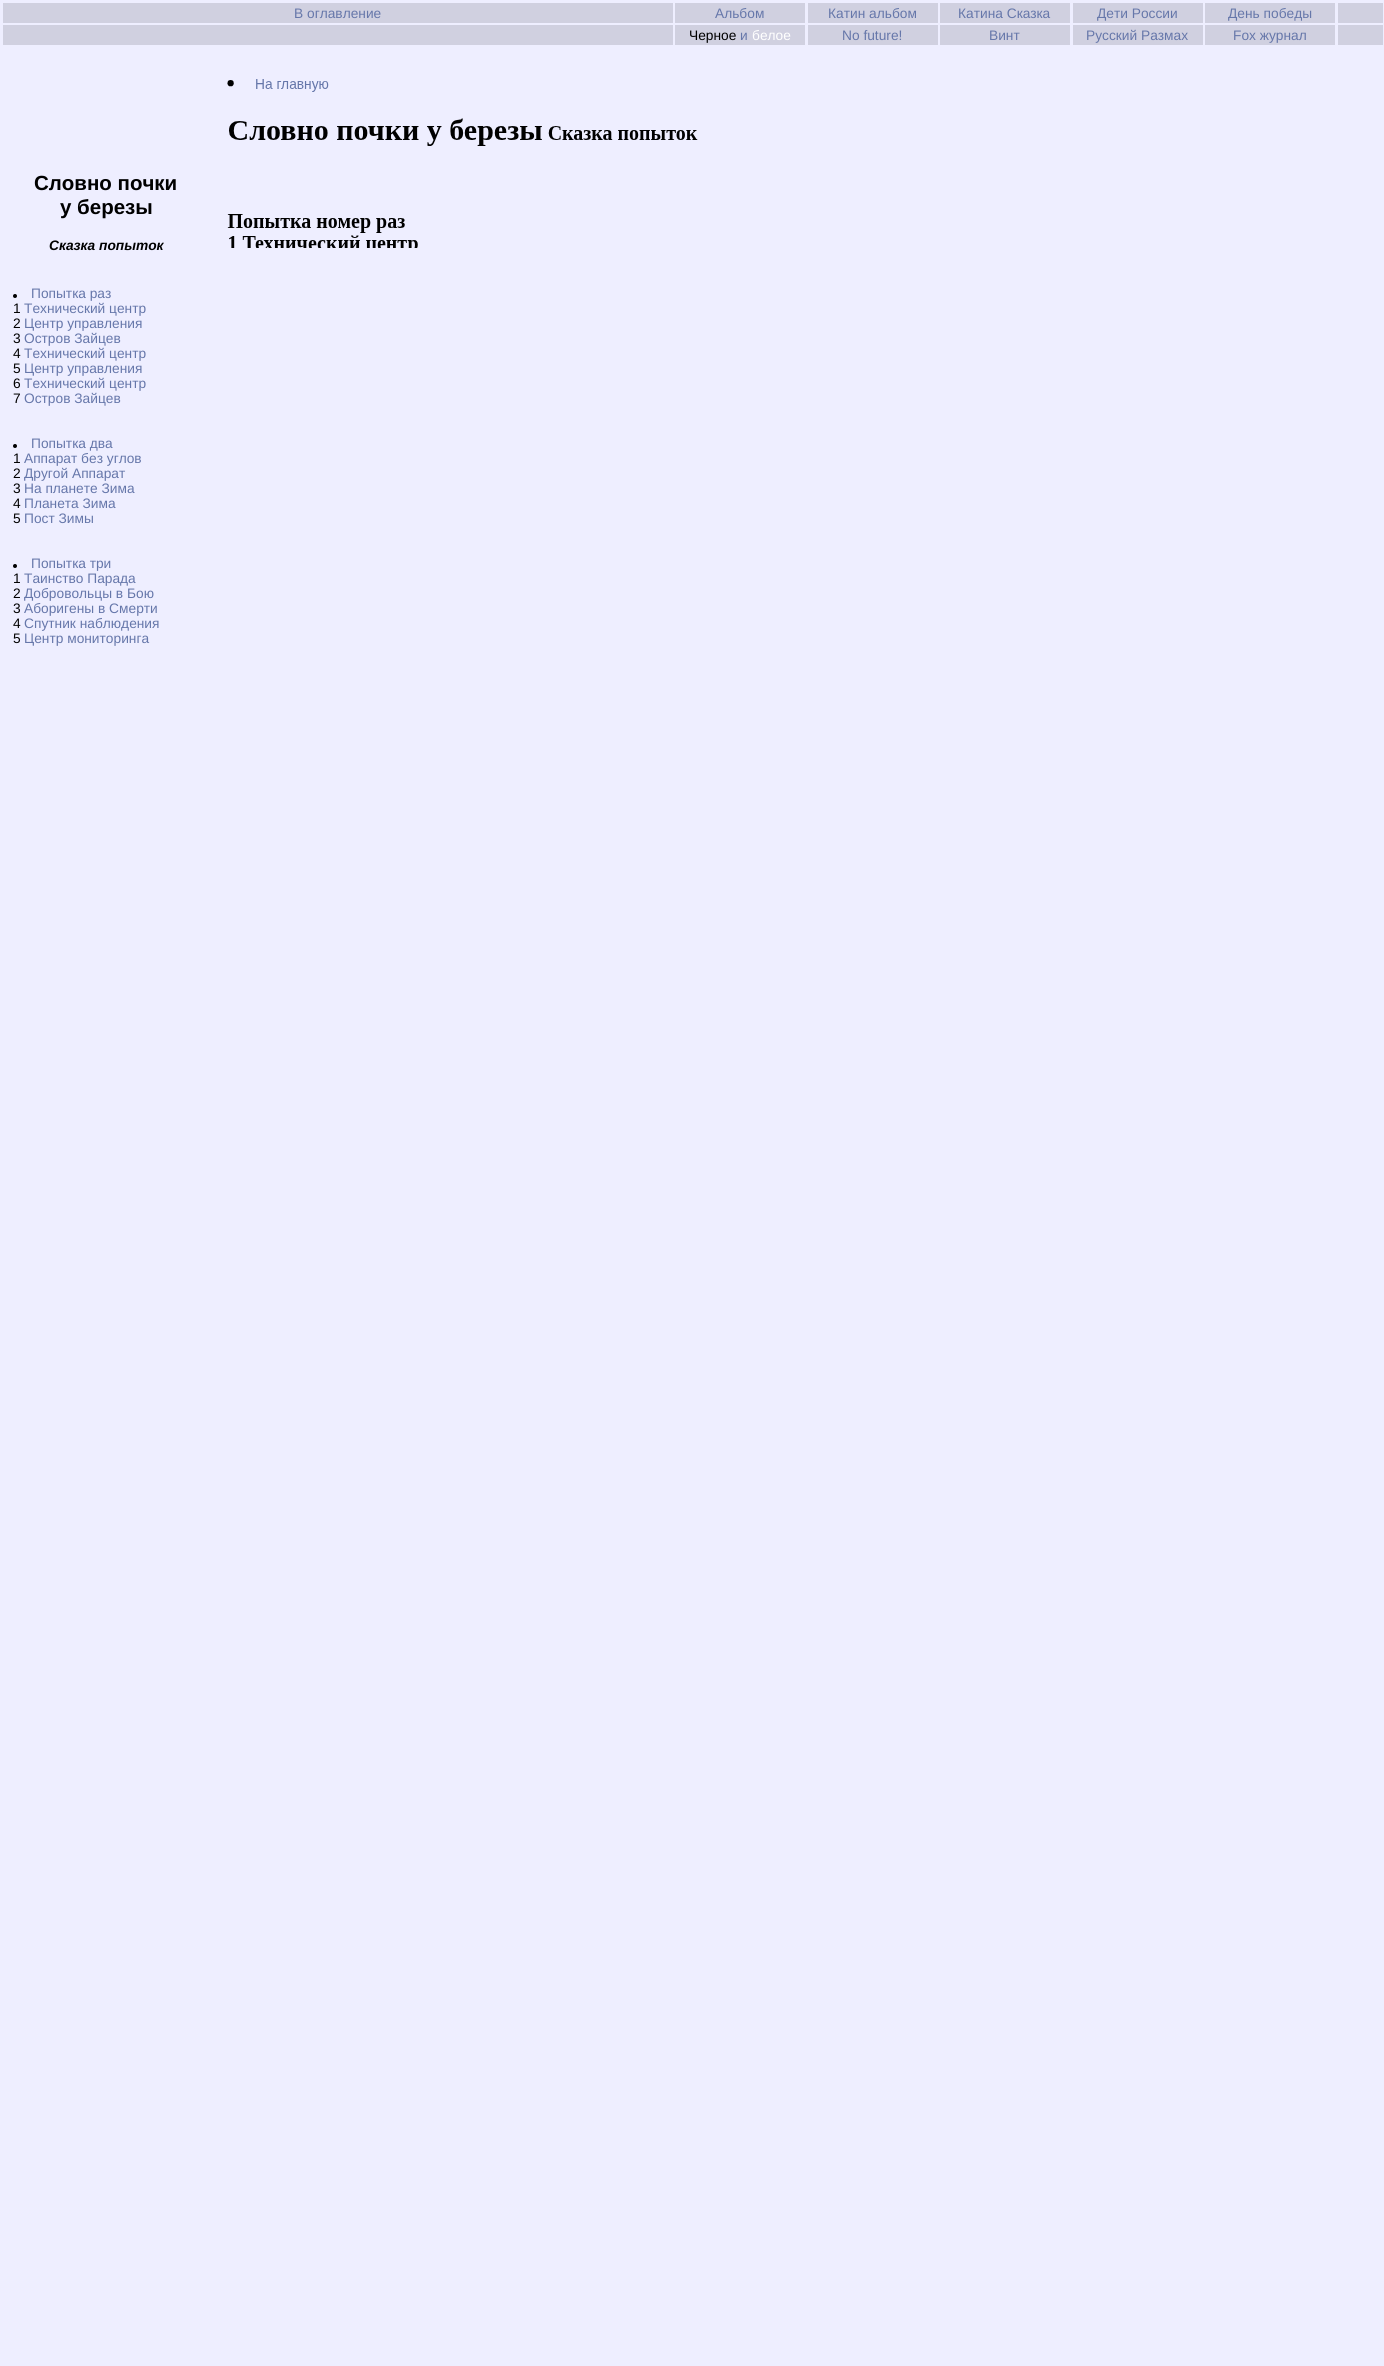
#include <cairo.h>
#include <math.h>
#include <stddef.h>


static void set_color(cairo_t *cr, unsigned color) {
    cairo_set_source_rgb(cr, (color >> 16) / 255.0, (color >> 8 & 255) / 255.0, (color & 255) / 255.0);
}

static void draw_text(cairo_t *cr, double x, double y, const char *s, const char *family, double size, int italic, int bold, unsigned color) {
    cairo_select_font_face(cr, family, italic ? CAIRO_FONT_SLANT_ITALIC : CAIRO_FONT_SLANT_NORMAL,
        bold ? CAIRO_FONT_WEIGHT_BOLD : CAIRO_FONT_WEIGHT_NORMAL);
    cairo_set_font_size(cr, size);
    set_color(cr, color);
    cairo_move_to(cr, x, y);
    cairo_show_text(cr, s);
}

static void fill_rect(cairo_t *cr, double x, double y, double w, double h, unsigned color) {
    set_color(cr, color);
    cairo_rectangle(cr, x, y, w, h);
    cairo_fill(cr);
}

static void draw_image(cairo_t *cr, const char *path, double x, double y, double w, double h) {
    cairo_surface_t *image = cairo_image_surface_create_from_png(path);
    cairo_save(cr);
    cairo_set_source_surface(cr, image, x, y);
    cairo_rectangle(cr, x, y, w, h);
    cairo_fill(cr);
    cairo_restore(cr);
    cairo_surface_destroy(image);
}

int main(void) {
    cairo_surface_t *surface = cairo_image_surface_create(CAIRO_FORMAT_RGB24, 1384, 2366);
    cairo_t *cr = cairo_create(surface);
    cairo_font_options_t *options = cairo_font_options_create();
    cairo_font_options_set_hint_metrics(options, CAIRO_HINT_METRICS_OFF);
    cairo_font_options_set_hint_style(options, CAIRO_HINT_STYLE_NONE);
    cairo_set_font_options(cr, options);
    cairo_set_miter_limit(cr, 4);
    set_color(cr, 0xEEEEFF);
    cairo_paint(cr);
    fill_rect(cr, 3, 3, 670, 20, 0xD0D0E0);
    draw_text(cr, 294, 18, "В оглавление", "Liberation Sans", 13.75, 0, 0, 0x6677AA);
    fill_rect(cr, 675, 3, 130, 20, 0xD0D0E0);
    draw_text(cr, 715, 18, "Альбом", "Liberation Sans", 13.75, 0, 0, 0x6677AA);
    fill_rect(cr, 808, 3, 130, 20, 0xD0D0E0);
    draw_text(cr, 828, 18, "Катин альбом", "Liberation Sans", 13.75, 0, 0, 0x6677AA);
    fill_rect(cr, 940, 3, 130, 20, 0xD0D0E0);
    draw_text(cr, 958, 18, "Катина Сказка", "Liberation Sans", 13.75, 0, 0, 0x6677AA);
    fill_rect(cr, 1073, 3, 130, 20, 0xD0D0E0);
    draw_text(cr, 1097, 18, "Дети России", "Liberation Sans", 13.75, 0, 0, 0x6677AA);
    fill_rect(cr, 1205, 3, 130, 20, 0xD0D0E0);
    draw_text(cr, 1228, 18, "День победы", "Liberation Sans", 13.75, 0, 0, 0x6677AA);
    fill_rect(cr, 1338, 3, 45, 20, 0xD0D0E0);
    fill_rect(cr, 3, 25, 670, 20, 0xD0D0E0);
    fill_rect(cr, 675, 25, 130, 20, 0xD0D0E0);
    draw_text(cr, 689, 40, "Черное", "Liberation Sans", 13.75, 0, 0, 0x000000);
    draw_text(cr, 740, 40, "и", "Liberation Sans", 13.75, 0, 0, 0x6677AA);
    draw_text(cr, 752, 40, "белое", "Liberation Sans", 13.75, 0, 0, 0xFFFFFF);
    fill_rect(cr, 808, 25, 130, 20, 0xD0D0E0);
    draw_text(cr, 842, 40, "No future!", "Liberation Sans", 13.75, 0, 0, 0x6677AA);
    fill_rect(cr, 940, 25, 130, 20, 0xD0D0E0);
    draw_text(cr, 989, 40, "Винт", "Liberation Sans", 13.75, 0, 0, 0x6677AA);
    fill_rect(cr, 1073, 25, 130, 20, 0xD0D0E0);
    draw_text(cr, 1086, 40, "Русский Размах", "Liberation Sans", 13.75, 0, 0, 0x6677AA);
    fill_rect(cr, 1205, 25, 130, 20, 0xD0D0E0);
    draw_text(cr, 1233, 40, "Fox журнал", "Liberation Sans", 13.75, 0, 0, 0x6677AA);
    fill_rect(cr, 1338, 25, 45, 20, 0xD0D0E0);
    draw_text(cr, 34, 190, "Словно почки", "Liberation Sans", 20.5, 0, 1, 0x000000);
    draw_text(cr, 60, 214, "у березы", "Liberation Sans", 20.5, 0, 1, 0x000000);
    draw_text(cr, 49, 250, "Сказка попыток", "Liberation Sans", 13.75, 1, 1, 0x000000);
    cairo_new_path(cr);
    cairo_arc(cr, 15, 296, 2, 0, 2 * M_PI);
    cairo_fill(cr);
    draw_text(cr, 31, 298, "Попытка раз", "Liberation Sans", 13.75, 0, 0, 0x6677AA);
    draw_text(cr, 13, 313, "1", "Liberation Sans", 13.75, 0, 0, 0x000000);
    draw_text(cr, 24, 313, "Технический центр", "Liberation Sans", 13.75, 0, 0, 0x6677AA);
    draw_text(cr, 13, 328, "2", "Liberation Sans", 13.75, 0, 0, 0x000000);
    draw_text(cr, 24, 328, "Центр управления", "Liberation Sans", 13.75, 0, 0, 0x6677AA);
    draw_text(cr, 13, 343, "3", "Liberation Sans", 13.75, 0, 0, 0x000000);
    draw_text(cr, 24, 343, "Остров Зайцев", "Liberation Sans", 13.75, 0, 0, 0x6677AA);
    draw_text(cr, 13, 358, "4", "Liberation Sans", 13.75, 0, 0, 0x000000);
    draw_text(cr, 24, 358, "Технический центр", "Liberation Sans", 13.75, 0, 0, 0x6677AA);
    draw_text(cr, 13, 373, "5", "Liberation Sans", 13.75, 0, 0, 0x000000);
    draw_text(cr, 24, 373, "Центр управления", "Liberation Sans", 13.75, 0, 0, 0x6677AA);
    draw_text(cr, 13, 388, "6", "Liberation Sans", 13.75, 0, 0, 0x000000);
    draw_text(cr, 24, 388, "Технический центр", "Liberation Sans", 13.75, 0, 0, 0x6677AA);
    draw_text(cr, 13, 403, "7", "Liberation Sans", 13.75, 0, 0, 0x000000);
    draw_text(cr, 24, 403, "Остров Зайцев", "Liberation Sans", 13.75, 0, 0, 0x6677AA);
    set_color(cr, 0x000000);
    cairo_new_path(cr);
    cairo_arc(cr, 15, 446, 2, 0, 2 * M_PI);
    cairo_fill(cr);
    draw_text(cr, 31, 448, "Попытка два", "Liberation Sans", 13.75, 0, 0, 0x6677AA);
    draw_text(cr, 13, 463, "1", "Liberation Sans", 13.75, 0, 0, 0x000000);
    draw_text(cr, 24, 463, "Аппарат без углов", "Liberation Sans", 13.75, 0, 0, 0x6677AA);
    draw_text(cr, 13, 478, "2", "Liberation Sans", 13.75, 0, 0, 0x000000);
    draw_text(cr, 24, 478, "Другой Аппарат", "Liberation Sans", 13.75, 0, 0, 0x6677AA);
    draw_text(cr, 13, 493, "3", "Liberation Sans", 13.75, 0, 0, 0x000000);
    draw_text(cr, 24, 493, "На планете Зима", "Liberation Sans", 13.75, 0, 0, 0x6677AA);
    draw_text(cr, 13, 508, "4", "Liberation Sans", 13.75, 0, 0, 0x000000);
    draw_text(cr, 24, 508, "Планета Зима", "Liberation Sans", 13.75, 0, 0, 0x6677AA);
    draw_text(cr, 13, 523, "5", "Liberation Sans", 13.75, 0, 0, 0x000000);
    draw_text(cr, 24, 523, "Пост Зимы", "Liberation Sans", 13.75, 0, 0, 0x6677AA);
    set_color(cr, 0x000000);
    cairo_new_path(cr);
    cairo_arc(cr, 15, 566, 2, 0, 2 * M_PI);
    cairo_fill(cr);
    draw_text(cr, 31, 568, "Попытка три", "Liberation Sans", 13.75, 0, 0, 0x6677AA);
    draw_text(cr, 13, 583, "1", "Liberation Sans", 13.75, 0, 0, 0x000000);
    draw_text(cr, 24, 583, "Таинство Парада", "Liberation Sans", 13.75, 0, 0, 0x6677AA);
    draw_text(cr, 13, 598, "2", "Liberation Sans", 13.75, 0, 0, 0x000000);
    draw_text(cr, 24, 598, "Добровольцы в Бою", "Liberation Sans", 13.75, 0, 0, 0x6677AA);
    draw_text(cr, 13, 613, "3", "Liberation Sans", 13.75, 0, 0, 0x000000);
    draw_text(cr, 24, 613, "Аборигены в Смерти", "Liberation Sans", 13.75, 0, 0, 0x6677AA);
    draw_text(cr, 13, 628, "4", "Liberation Sans", 13.75, 0, 0, 0x000000);
    draw_text(cr, 24, 628, "Спутник наблюдения", "Liberation Sans", 13.75, 0, 0, 0x6677AA);
    draw_text(cr, 13, 643, "5", "Liberation Sans", 13.75, 0, 0, 0x000000);
    draw_text(cr, 24, 643, "Центр мониторинга", "Liberation Sans", 13.75, 0, 0, 0x6677AA);
    draw_image(cr, "assets/img1.png", 227, 79, 471, 169);
    cairo_surface_write_to_png(surface, "output.png");
    cairo_font_options_destroy(options);
    cairo_destroy(cr);
    cairo_surface_destroy(surface);
    return 0;
}
